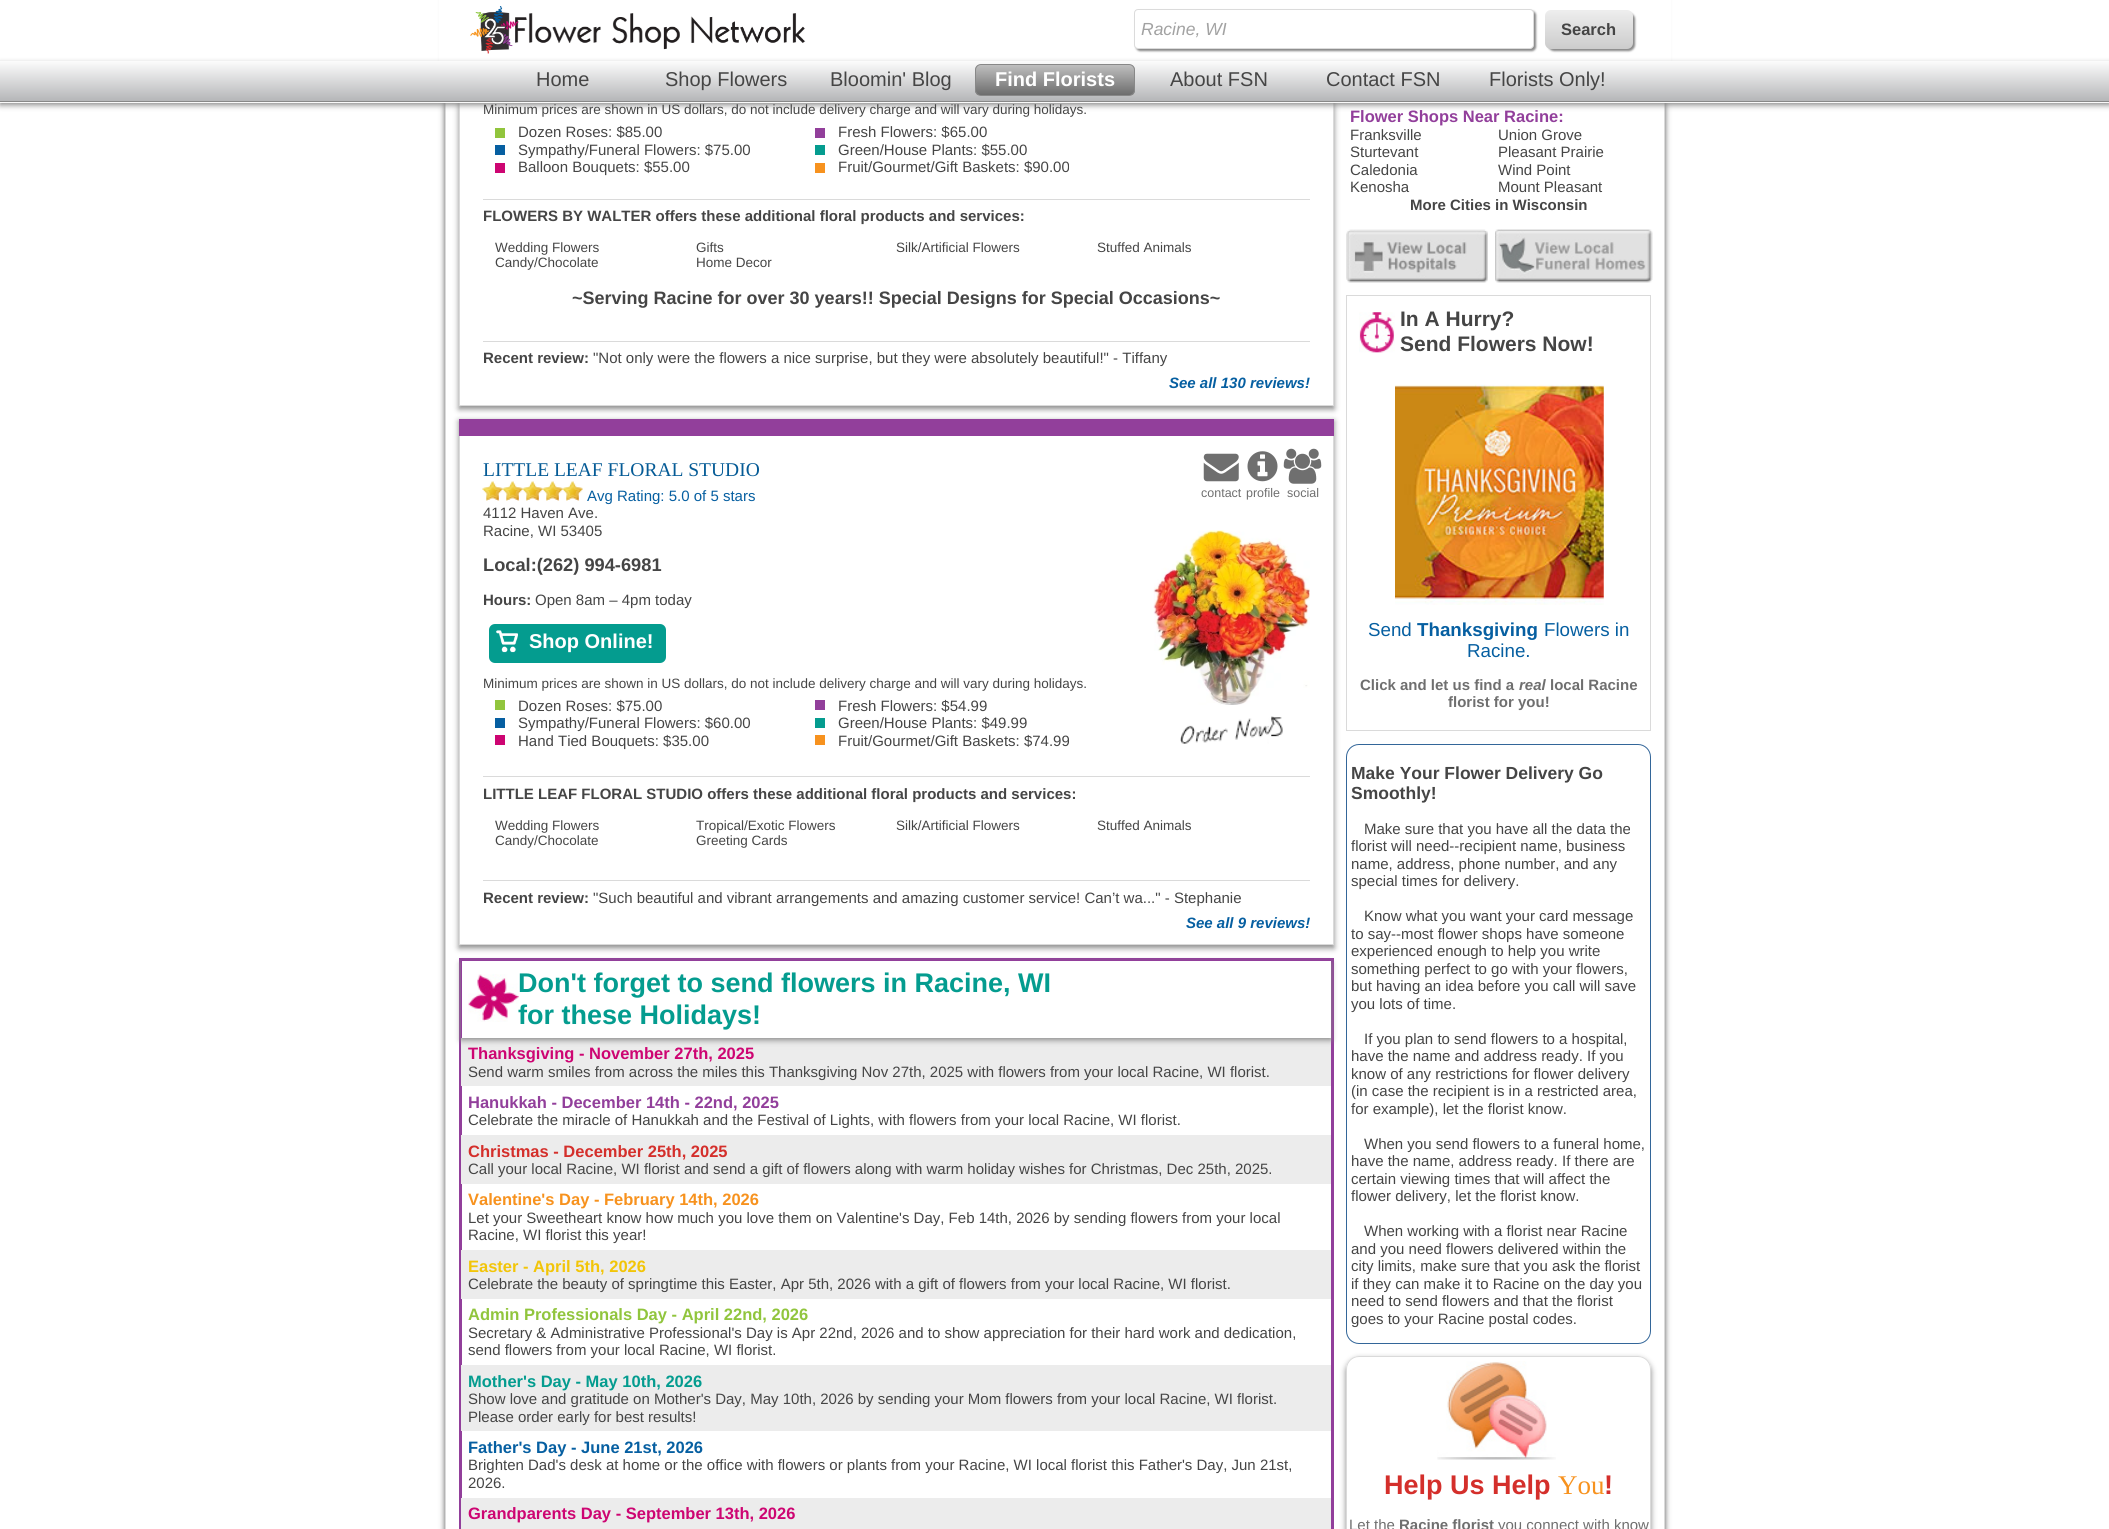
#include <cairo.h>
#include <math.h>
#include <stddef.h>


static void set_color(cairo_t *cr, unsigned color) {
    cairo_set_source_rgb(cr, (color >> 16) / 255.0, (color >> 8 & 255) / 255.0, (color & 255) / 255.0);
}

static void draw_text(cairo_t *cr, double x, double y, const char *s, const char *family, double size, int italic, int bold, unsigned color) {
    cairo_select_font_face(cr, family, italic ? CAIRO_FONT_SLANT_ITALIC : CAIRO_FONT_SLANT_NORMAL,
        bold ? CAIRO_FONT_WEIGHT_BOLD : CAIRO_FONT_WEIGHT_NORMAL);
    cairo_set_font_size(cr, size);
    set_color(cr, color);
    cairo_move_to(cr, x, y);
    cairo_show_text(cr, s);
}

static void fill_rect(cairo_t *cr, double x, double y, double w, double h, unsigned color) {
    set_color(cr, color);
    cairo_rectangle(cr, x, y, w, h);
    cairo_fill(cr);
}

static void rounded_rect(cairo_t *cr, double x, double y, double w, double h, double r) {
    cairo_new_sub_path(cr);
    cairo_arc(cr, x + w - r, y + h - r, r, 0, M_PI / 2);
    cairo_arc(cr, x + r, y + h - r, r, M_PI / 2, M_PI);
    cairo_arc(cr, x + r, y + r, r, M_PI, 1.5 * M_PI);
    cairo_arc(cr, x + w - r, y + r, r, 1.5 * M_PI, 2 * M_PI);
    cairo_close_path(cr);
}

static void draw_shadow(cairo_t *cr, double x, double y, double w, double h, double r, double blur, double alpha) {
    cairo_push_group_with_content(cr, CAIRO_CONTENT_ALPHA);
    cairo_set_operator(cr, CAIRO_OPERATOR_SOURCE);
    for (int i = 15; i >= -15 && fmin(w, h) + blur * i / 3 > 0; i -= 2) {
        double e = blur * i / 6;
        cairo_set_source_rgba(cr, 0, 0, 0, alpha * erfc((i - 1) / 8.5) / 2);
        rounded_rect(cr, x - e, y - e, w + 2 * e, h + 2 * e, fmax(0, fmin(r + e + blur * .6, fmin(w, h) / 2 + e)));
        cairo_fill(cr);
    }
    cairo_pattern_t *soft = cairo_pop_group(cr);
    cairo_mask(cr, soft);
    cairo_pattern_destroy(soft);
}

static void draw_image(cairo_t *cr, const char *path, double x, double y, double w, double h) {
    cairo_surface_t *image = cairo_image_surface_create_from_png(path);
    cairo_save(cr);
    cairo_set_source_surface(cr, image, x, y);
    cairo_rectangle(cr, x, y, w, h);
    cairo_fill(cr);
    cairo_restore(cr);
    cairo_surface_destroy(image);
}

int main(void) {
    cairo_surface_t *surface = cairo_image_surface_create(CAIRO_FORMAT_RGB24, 2109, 1529);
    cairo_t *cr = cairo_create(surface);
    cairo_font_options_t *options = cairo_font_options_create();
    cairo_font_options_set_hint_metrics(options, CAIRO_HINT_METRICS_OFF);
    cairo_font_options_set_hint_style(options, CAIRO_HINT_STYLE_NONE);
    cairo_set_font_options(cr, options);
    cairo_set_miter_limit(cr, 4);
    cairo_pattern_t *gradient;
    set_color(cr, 0xFFFFFF);
    cairo_paint(cr);
    cairo_save(cr);
    cairo_set_fill_rule(cr, CAIRO_FILL_RULE_EVEN_ODD);
    cairo_new_path(cr);
    cairo_move_to(cr, 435, 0);
    cairo_line_to(cr, 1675, 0);
    cairo_line_to(cr, 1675, 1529);
    cairo_line_to(cr, 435, 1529);
    cairo_close_path(cr);
    cairo_move_to(cr, 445, -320);
    cairo_line_to(cr, 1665, -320);
    cairo_line_to(cr, 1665, 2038);
    cairo_line_to(cr, 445, 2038);
    cairo_close_path(cr);
    cairo_clip(cr);
    set_color(cr, 0x535353);
    draw_shadow(cr, 445, -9, 1220, 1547, 0, 3, 1);
    cairo_restore(cr);
    cairo_save(cr);
    cairo_set_fill_rule(cr, CAIRO_FILL_RULE_EVEN_ODD);
    cairo_new_path(cr);
    cairo_move_to(cr, 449, 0);
    cairo_line_to(cr, 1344, 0);
    cairo_line_to(cr, 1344, 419);
    cairo_line_to(cr, 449, 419);
    cairo_close_path(cr);
    cairo_move_to(cr, 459, -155);
    cairo_line_to(cr, 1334, -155);
    cairo_line_to(cr, 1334, 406);
    cairo_line_to(cr, 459, 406);
    cairo_close_path(cr);
    cairo_clip(cr);
    set_color(cr, 0x888888);
    draw_shadow(cr, 459, -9, 875, 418, 0, 3, 1);
    cairo_restore(cr);
    fill_rect(cr, 439, 0, 1232, 61, 0xFFFFFF);
    draw_image(cr, "assets/img1.png", 470, 6, 336, 48);
    set_color(cr, 0x888888);
    draw_shadow(cr, 1136, 11, 400, 40, 4, 1, 1);
    set_color(cr, 0xFFFFFF);
    rounded_rect(cr, 1134.5, 9.5, 399, 39, 3.5);
    cairo_fill_preserve(cr);
    set_color(cr, 0xDBDBDB);
    cairo_set_line_width(cr, 1);
    cairo_stroke(cr);
    draw_text(cr, 1141, 35, "Racine, WI", "Liberation Sans", 17.5, 1, 0, 0xA2A2A2);
    set_color(cr, 0x888888);
    draw_shadow(cr, 1548, 13, 87, 38, 6, 1, 1);
    gradient = cairo_pattern_create_linear(1589, 10, 1589, 49);
    cairo_pattern_add_color_stop_rgba(gradient, 0, 0.933, 0.933, 0.933, 1);
    cairo_pattern_add_color_stop_rgba(gradient, 1, 0.8, 0.8, 0.8, 1);
    cairo_set_source(cr, gradient);
    cairo_pattern_destroy(gradient);
    rounded_rect(cr, 1545, 10, 88, 39, 6);
    cairo_fill(cr);
    draw_text(cr, 1561, 35, "Search", "Liberation Sans", 16.5, 0, 1, 0x454545);
    fill_rect(cr, 1664, 103, 1, 1426, 0xDADADA);
    fill_rect(cr, 445, 103, 1, 1426, 0xDADADA);
    fill_rect(cr, 1333, 103, 1, 303, 0xDADADA);
    fill_rect(cr, 459, 405, 875, 1, 0xDADADA);
    fill_rect(cr, 459, 103, 1, 303, 0xDADADA);
    set_color(cr, 0x888888);
    draw_shadow(cr, 0, 64, 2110, 41, 0, 3, 1);
    gradient = cairo_pattern_create_linear(1055, 61, 1055, 101);
    cairo_pattern_add_color_stop_rgba(gradient, 0, 0.988, 0.988, 0.988, 1);
    cairo_pattern_add_color_stop_rgba(gradient, 1, 0.71, 0.714, 0.722, 1);
    cairo_set_source(cr, gradient);
    cairo_pattern_destroy(gradient);
    cairo_rectangle(cr, 0, 61, 2109, 40);
    cairo_fill(cr);
    gradient = cairo_pattern_create_linear(1055, 101, 1055, 141);
    cairo_pattern_add_color_stop_rgba(gradient, 0, 0.988, 0.988, 0.988, 1);
    cairo_pattern_add_color_stop_rgba(gradient, 1, 0.71, 0.714, 0.722, 1);
    cairo_set_source(cr, gradient);
    cairo_pattern_destroy(gradient);
    cairo_rectangle(cr, 0, 102, 2109, 1);
    cairo_fill(cr);
    fill_rect(cr, 0, 101, 2109, 1, 0x888888);
    draw_text(cr, 536, 86, "Home", "Liberation Sans", 20, 0, 0, 0x454545);
    draw_text(cr, 665, 86, "Shop Flowers", "Liberation Sans", 20, 0, 0, 0x454545);
    draw_text(cr, 830, 86, "Bloomin' Blog", "Liberation Sans", 20, 0, 0, 0x454545);
    cairo_save(cr);
    rounded_rect(cr, 975, 64, 160, 32, 6);
    cairo_clip(cr);
    gradient = cairo_pattern_create_linear(1055, 65, 1055, 95);
    cairo_pattern_add_color_stop_rgba(gradient, 0, 0.749, 0.749, 0.749, 1);
    cairo_pattern_add_color_stop_rgba(gradient, 1, 0.427, 0.427, 0.427, 1);
    cairo_set_source(cr, gradient);
    cairo_pattern_destroy(gradient);
    cairo_rectangle(cr, 975, 65, 160, 30);
    cairo_fill(cr);
    cairo_restore(cr);
    rounded_rect(cr, 975.5, 64.5, 159, 31, 5.5);
    set_color(cr, 0x888888);
    cairo_stroke(cr);
    draw_text(cr, 995, 86, "Find Florists", "Liberation Sans", 20, 0, 1, 0xFFFFFF);
    draw_text(cr, 1170, 86, "About FSN", "Liberation Sans", 20, 0, 0, 0x454545);
    draw_text(cr, 1326, 86, "Contact FSN", "Liberation Sans", 20, 0, 0, 0x454545);
    draw_text(cr, 1489, 86, "Florists Only!", "Liberation Sans", 20, 0, 0, 0x454545);
    draw_text(cr, 483, 114, "Minimum prices are shown in US dollars, do not include delivery charge and will vary during holidays.", "Liberation Sans", 13.5, 0, 0, 0x454545);
    fill_rect(cr, 495, 128, 10, 10, 0x91C53D);
    draw_text(cr, 518, 137, "Dozen Roses: $85.00", "Liberation Sans", 15, 0, 0, 0x454545);
    fill_rect(cr, 815, 128, 10, 10, 0x923F9B);
    draw_text(cr, 838, 137, "Fresh Flowers: $65.00", "Liberation Sans", 15, 0, 0, 0x454545);
    fill_rect(cr, 495, 145, 10, 10, 0x065FA1);
    draw_text(cr, 518, 155, "Sympathy/Funeral Flowers: $75.00", "Liberation Sans", 15, 0, 0, 0x454545);
    fill_rect(cr, 815, 145, 10, 10, 0x049C8F);
    draw_text(cr, 838, 155, "Green/House Plants: $55.00", "Liberation Sans", 15, 0, 0, 0x454545);
    fill_rect(cr, 495, 163, 10, 10, 0xCD0572);
    draw_text(cr, 518, 172, "Balloon Bouquets: $55.00", "Liberation Sans", 15, 0, 0, 0x454545);
    fill_rect(cr, 815, 163, 10, 10, 0xF7921E);
    draw_text(cr, 838, 172, "Fruit/Gourmet/Gift Baskets: $90.00", "Liberation Sans", 15, 0, 0, 0x454545);
    fill_rect(cr, 483, 199, 827, 1, 0xDADADA);
    draw_text(cr, 483, 221, "FLOWERS BY WALTER offers these additional floral products and services:", "Liberation Sans", 15, 0, 1, 0x454545);
    draw_text(cr, 495, 252, "Wedding Flowers", "Liberation Sans", 13.5, 0, 0, 0x454545);
    draw_text(cr, 696, 252, "Gifts", "Liberation Sans", 13.5, 0, 0, 0x454545);
    draw_text(cr, 896, 252, "Silk/Artificial Flowers", "Liberation Sans", 13.5, 0, 0, 0x454545);
    draw_text(cr, 1097, 252, "Stuffed Animals", "Liberation Sans", 13.5, 0, 0, 0x454545);
    draw_text(cr, 495, 267, "Candy/Chocolate", "Liberation Sans", 13.5, 0, 0, 0x454545);
    draw_text(cr, 696, 267, "Home Decor", "Liberation Sans", 13.5, 0, 0, 0x454545);
    draw_text(cr, 572, 304, "~Serving Racine for over 30 years!! Special Designs for Special Occasions~", "Liberation Sans", 18, 0, 1, 0x454545);
    fill_rect(cr, 483, 341, 827, 1, 0xDADADA);
    draw_text(cr, 483, 363, "Recent review:", "Liberation Sans", 15, 0, 1, 0x454545);
    draw_text(cr, 593, 363, "\"Not only were the flowers a nice surprise, but they were absolutely beautiful!\" - Tiffany", "Liberation Sans", 15, 0, 0, 0x454545);
    draw_text(cr, 1169, 388, "See all 130 reviews!", "Liberation Sans", 15, 1, 1, 0x065FA1);
    cairo_save(cr);
    cairo_set_fill_rule(cr, CAIRO_FILL_RULE_EVEN_ODD);
    cairo_new_path(cr);
    cairo_move_to(cr, 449, 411);
    cairo_line_to(cr, 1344, 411);
    cairo_line_to(cr, 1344, 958);
    cairo_line_to(cr, 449, 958);
    cairo_close_path(cr);
    cairo_move_to(cr, 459, 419);
    cairo_line_to(cr, 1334, 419);
    cairo_line_to(cr, 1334, 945);
    cairo_line_to(cr, 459, 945);
    cairo_close_path(cr);
    cairo_clip(cr);
    set_color(cr, 0x888888);
    draw_shadow(cr, 459, 421, 875, 527, 0, 3, 1);
    cairo_restore(cr);
    fill_rect(cr, 459, 419, 875, 17, 0x923F9B);
    fill_rect(cr, 1333, 436, 1, 509, 0xDADADA);
    fill_rect(cr, 459, 944, 875, 1, 0xDADADA);
    fill_rect(cr, 459, 436, 1, 509, 0xDADADA);
    draw_text(cr, 483, 476, "LITTLE LEAF FLORAL STUDIO", "Liberation Serif", 19.5, 0, 0, 0x055B96);
    draw_image(cr, "assets/img2.png", 482, 481, 21, 20);
    draw_image(cr, "assets/img3.png", 502, 481, 21, 20);
    draw_image(cr, "assets/img3.png", 522, 481, 21, 20);
    draw_image(cr, "assets/img4.png", 542, 481, 21, 20);
    draw_image(cr, "assets/img4.png", 562, 481, 21, 20);
    draw_text(cr, 587, 501, "Avg Rating: 5.0 of 5 stars", "Liberation Sans", 15, 0, 0, 0x065FA1);
    draw_image(cr, "assets/img5.png", 1203, 453, 36, 29);
    draw_text(cr, 1201, 497, "contact", "Liberation Sans", 12.5, 0, 0, 0x6F6F6F);
    draw_image(cr, "assets/img6.png", 1247, 451, 31, 31);
    draw_text(cr, 1246, 497, "profile", "Liberation Sans", 12.5, 0, 0, 0x6F6F6F);
    draw_image(cr, "assets/img7.png", 1283, 448, 39, 36);
    draw_text(cr, 1287, 497, "social", "Liberation Sans", 12.5, 0, 0, 0x6F6F6F);
    draw_text(cr, 483, 518, "4112 Haven Ave.", "Liberation Sans", 15, 0, 0, 0x454545);
    draw_text(cr, 483, 536, "Racine, WI 53405", "Liberation Sans", 15, 0, 0, 0x454545);
    draw_text(cr, 483, 571, "Local:(262) 994-6981", "Liberation Sans", 18.25, 0, 1, 0x454545);
    draw_image(cr, "assets/img8.png", 1153, 530, 157, 175);
    draw_image(cr, "assets/img9.png", 1180, 716, 103, 28);
    draw_text(cr, 483, 605, "Hours:", "Liberation Sans", 15, 0, 1, 0x454545);
    draw_text(cr, 535, 605, "Open 8am – 4pm today", "Liberation Sans", 15, 0, 0, 0x454545);
    set_color(cr, 0x049C8F);
    rounded_rect(cr, 489, 624, 177, 39, 6);
    cairo_fill(cr);
    draw_image(cr, "assets/img10.png", 496, 630, 22, 23);
    draw_text(cr, 529, 648, "Shop Online!", "Liberation Sans", 20, 0, 1, 0xFFFFFF);
    draw_text(cr, 483, 688, "Minimum prices are shown in US dollars, do not include delivery charge and will vary during holidays.", "Liberation Sans", 13.5, 0, 0, 0x454545);
    fill_rect(cr, 495, 700, 10, 10, 0x91C53D);
    draw_text(cr, 518, 711, "Dozen Roses: $75.00", "Liberation Sans", 15, 0, 0, 0x454545);
    fill_rect(cr, 815, 700, 10, 10, 0x923F9B);
    draw_text(cr, 838, 711, "Fresh Flowers: $54.99", "Liberation Sans", 15, 0, 0, 0x454545);
    fill_rect(cr, 495, 718, 10, 10, 0x065FA1);
    draw_text(cr, 518, 728, "Sympathy/Funeral Flowers: $60.00", "Liberation Sans", 15, 0, 0, 0x454545);
    fill_rect(cr, 815, 718, 10, 10, 0x049C8F);
    draw_text(cr, 838, 728, "Green/House Plants: $49.99", "Liberation Sans", 15, 0, 0, 0x454545);
    fill_rect(cr, 495, 735, 10, 10, 0xCD0572);
    draw_text(cr, 518, 746, "Hand Tied Bouquets: $35.00", "Liberation Sans", 15, 0, 0, 0x454545);
    fill_rect(cr, 815, 735, 10, 10, 0xF7921E);
    draw_text(cr, 838, 746, "Fruit/Gourmet/Gift Baskets: $74.99", "Liberation Sans", 15, 0, 0, 0x454545);
    fill_rect(cr, 483, 776, 827, 1, 0xDADADA);
    draw_text(cr, 483, 799, "LITTLE LEAF FLORAL STUDIO offers these additional floral products and services:", "Liberation Sans", 15, 0, 1, 0x454545);
    draw_text(cr, 495, 830, "Wedding Flowers", "Liberation Sans", 13.5, 0, 0, 0x454545);
    draw_text(cr, 696, 830, "Tropical/Exotic Flowers", "Liberation Sans", 13.5, 0, 0, 0x454545);
    draw_text(cr, 896, 830, "Silk/Artificial Flowers", "Liberation Sans", 13.5, 0, 0, 0x454545);
    draw_text(cr, 1097, 830, "Stuffed Animals", "Liberation Sans", 13.5, 0, 0, 0x454545);
    draw_text(cr, 495, 845, "Candy/Chocolate", "Liberation Sans", 13.5, 0, 0, 0x454545);
    draw_text(cr, 696, 845, "Greeting Cards", "Liberation Sans", 13.5, 0, 0, 0x454545);
    fill_rect(cr, 483, 880, 827, 1, 0xDADADA);
    draw_text(cr, 483, 903, "Recent review:", "Liberation Sans", 15, 0, 1, 0x454545);
    draw_text(cr, 593, 903, "\"Such beautiful and vibrant arrangements and amazing customer service! Can’t wa...\" - Stephanie", "Liberation Sans", 15, 0, 0, 0x454545);
    draw_text(cr, 1186, 928, "See all 9 reviews!", "Liberation Sans", 15, 1, 1, 0x065FA1);
    cairo_rectangle(cr, 460.5, 959.5, 872, 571);
    set_color(cr, 0x923F9B);
    cairo_set_line_width(cr, 3);
    cairo_stroke(cr);
    fill_rect(cr, 461, 1038, 870, 48, 0xECECEC);
    cairo_save(cr);
    cairo_set_fill_rule(cr, CAIRO_FILL_RULE_EVEN_ODD);
    cairo_new_path(cr);
    cairo_move_to(cr, 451, 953);
    cairo_line_to(cr, 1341, 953);
    cairo_line_to(cr, 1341, 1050);
    cairo_line_to(cr, 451, 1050);
    cairo_close_path(cr);
    cairo_move_to(cr, 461, 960);
    cairo_line_to(cr, 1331, 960);
    cairo_line_to(cr, 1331, 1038);
    cairo_line_to(cr, 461, 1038);
    cairo_close_path(cr);
    cairo_clip(cr);
    set_color(cr, 0x888888);
    draw_shadow(cr, 461, 963, 870, 77, 0, 3, 1);
    cairo_restore(cr);
    draw_image(cr, "assets/img11.png", 468, 974, 51, 48);
    draw_text(cr, 518, 992, "Don't forget to send flowers in Racine, WI", "Liberation Sans", 27, 0, 1, 0x049C8F);
    draw_text(cr, 518, 1024, "for these Holidays!", "Liberation Sans", 27, 0, 1, 0x049C8F);
    draw_text(cr, 468, 1059, "Thanksgiving - November 27th, 2025", "Liberation Sans", 16.5, 0, 1, 0xCD0572);
    draw_text(cr, 468, 1077, "Send warm smiles from across the miles this Thanksgiving Nov 27th, 2025 with flowers from your local Racine, WI florist.", "Liberation Sans", 15, 0, 0, 0x454545);
    draw_text(cr, 468, 1108, "Hanukkah - December 14th - 22nd, 2025", "Liberation Sans", 16.5, 0, 1, 0x923F9B);
    draw_text(cr, 468, 1125, "Celebrate the miracle of Hanukkah and the Festival of Lights, with flowers from your local Racine, WI florist.", "Liberation Sans", 15, 0, 0, 0x454545);
    fill_rect(cr, 461, 1135, 870, 49, 0xECECEC);
    draw_text(cr, 468, 1157, "Christmas - December 25th, 2025", "Liberation Sans", 16.5, 0, 1, 0xD42F2B);
    draw_text(cr, 468, 1174, "Call your local Racine, WI florist and send a gift of flowers along with warm holiday wishes for Christmas, Dec 25th, 2025.", "Liberation Sans", 15, 0, 0, 0x454545);
    draw_text(cr, 468, 1205, "Valentine's Day - February 14th, 2026", "Liberation Sans", 16.5, 0, 1, 0xF7921E);
    draw_text(cr, 468, 1223, "Let your Sweetheart know how much you love them on Valentine's Day, Feb 14th, 2026 by sending flowers from your local", "Liberation Sans", 15, 0, 0, 0x454545);
    draw_text(cr, 468, 1240, "Racine, WI florist this year!", "Liberation Sans", 15, 0, 0, 0x454545);
    fill_rect(cr, 461, 1250, 870, 49, 0xECECEC);
    draw_text(cr, 468, 1272, "Easter - April 5th, 2026", "Liberation Sans", 16.5, 0, 1, 0xF2C508);
    draw_text(cr, 468, 1289, "Celebrate the beauty of springtime this Easter, Apr 5th, 2026 with a gift of flowers from your local Racine, WI florist.", "Liberation Sans", 15, 0, 0, 0x454545);
    draw_text(cr, 468, 1320, "Admin Professionals Day - April 22nd, 2026", "Liberation Sans", 16.5, 0, 1, 0x91C53D);
    draw_text(cr, 468, 1338, "Secretary & Administrative Professional's Day is Apr 22nd, 2026 and to show appreciation for their hard work and dedication,", "Liberation Sans", 15, 0, 0, 0x454545);
    draw_text(cr, 468, 1355, "send flowers from your local Racine, WI florist.", "Liberation Sans", 15, 0, 0, 0x454545);
    fill_rect(cr, 461, 1365, 870, 66, 0xECECEC);
    draw_text(cr, 468, 1387, "Mother's Day - May 10th, 2026", "Liberation Sans", 16.5, 0, 1, 0x049C8F);
    draw_text(cr, 468, 1404, "Show love and gratitude on Mother's Day, May 10th, 2026 by sending your Mom flowers from your local Racine, WI florist.", "Liberation Sans", 15, 0, 0, 0x454545);
    draw_text(cr, 468, 1422, "Please order early for best results!", "Liberation Sans", 15, 0, 0, 0x454545);
    draw_text(cr, 468, 1453, "Father's Day - June 21st, 2026", "Liberation Sans", 16.5, 0, 1, 0x065FA1);
    draw_text(cr, 468, 1470, "Brighten Dad's desk at home or the office with flowers or plants from your Racine, WI local florist this Father's Day, Jun 21st,", "Liberation Sans", 15, 0, 0, 0x454545);
    draw_text(cr, 468, 1488, "2026.", "Liberation Sans", 15, 0, 0, 0x454545);
    fill_rect(cr, 461, 1498, 870, 31, 0xECECEC);
    draw_text(cr, 468, 1519, "Grandparents Day - September 13th, 2026", "Liberation Sans", 16.5, 0, 1, 0xCD0572);
    draw_text(cr, 1350, 122, "Flower Shops Near Racine:", "Liberation Sans", 16.5, 0, 1, 0x923F9B);
    draw_text(cr, 1350, 140, "Franksville", "Liberation Sans", 15, 0, 0, 0x454545);
    draw_text(cr, 1498, 140, "Union Grove", "Liberation Sans", 15, 0, 0, 0x454545);
    draw_text(cr, 1350, 157, "Sturtevant", "Liberation Sans", 15, 0, 0, 0x454545);
    draw_text(cr, 1498, 157, "Pleasant Prairie", "Liberation Sans", 15, 0, 0, 0x454545);
    draw_text(cr, 1350, 175, "Caledonia", "Liberation Sans", 15, 0, 0, 0x454545);
    draw_text(cr, 1498, 175, "Wind Point", "Liberation Sans", 15, 0, 0, 0x454545);
    draw_text(cr, 1350, 192, "Kenosha", "Liberation Sans", 15, 0, 0, 0x454545);
    draw_text(cr, 1498, 192, "Mount Pleasant", "Liberation Sans", 15, 0, 0, 0x454545);
    draw_text(cr, 1410, 210, "More Cities in Wisconsin", "Liberation Sans", 15, 0, 1, 0x454545);
    draw_image(cr, "assets/img12.png", 1346, 229, 142, 54);
    draw_image(cr, "assets/img13.png", 1346, 229, 142, 54);
    draw_image(cr, "assets/img14.png", 1495, 229, 158, 54);
    draw_image(cr, "assets/img15.png", 1495, 229, 158, 54);
    cairo_rectangle(cr, 1346.5, 295.5, 304, 435);
    set_color(cr, 0xDADADA);
    cairo_set_line_width(cr, 1);
    cairo_stroke(cr);
    draw_image(cr, "assets/img16.png", 1359, 312, 36, 41);
    draw_text(cr, 1400, 326, "In A Hurry?", "Liberation Sans", 21, 0, 1, 0x454545);
    draw_text(cr, 1400, 351, "Send Flowers Now!", "Liberation Sans", 21, 0, 1, 0x454545);
    draw_image(cr, "assets/img17.png", 1395, 384, 209, 221);
    draw_text(cr, 1368, 636, "Send", "Liberation Sans", 18.75, 0, 0, 0x065FA1);
    draw_text(cr, 1417, 636, "Thanksgiving", "Liberation Sans", 18.75, 0, 1, 0x065FA1);
    draw_text(cr, 1544, 636, "Flowers in", "Liberation Sans", 18.75, 0, 0, 0x065FA1);
    draw_text(cr, 1467, 657, "Racine.", "Liberation Sans", 18.75, 0, 0, 0x065FA1);
    draw_text(cr, 1360, 690, "Click and let us find a", "Liberation Sans", 15, 0, 1, 0x6F6F6F);
    draw_text(cr, 1519, 690, "real", "Liberation Sans", 15, 1, 1, 0x6F6F6F);
    draw_text(cr, 1550, 690, "local Racine", "Liberation Sans", 15, 0, 1, 0x6F6F6F);
    draw_text(cr, 1448, 707, "florist for you!", "Liberation Sans", 15, 0, 1, 0x6F6F6F);
    rounded_rect(cr, 1346.5, 744.5, 304, 599, 12.5);
    set_color(cr, 0x336699);
    cairo_stroke(cr);
    draw_text(cr, 1351, 779, "Make Your Flower Delivery Go", "Liberation Sans", 17.5, 0, 1, 0x454545);
    draw_text(cr, 1351, 799, "Smoothly!", "Liberation Sans", 17.5, 0, 1, 0x454545);
    draw_text(cr, 1364, 834, "Make sure that you have all the data the", "Liberation Sans", 15, 0, 0, 0x454545);
    draw_text(cr, 1351, 851, "florist will need--recipient name, business", "Liberation Sans", 15, 0, 0, 0x454545);
    draw_text(cr, 1351, 869, "name, address, phone number, and any", "Liberation Sans", 15, 0, 0, 0x454545);
    draw_text(cr, 1351, 886, "special times for delivery.", "Liberation Sans", 15, 0, 0, 0x454545);
    draw_text(cr, 1364, 921, "Know what you want your card message", "Liberation Sans", 15, 0, 0, 0x454545);
    draw_text(cr, 1351, 939, "to say--most flower shops have someone", "Liberation Sans", 15, 0, 0, 0x454545);
    draw_text(cr, 1351, 956, "experienced enough to help you write", "Liberation Sans", 15, 0, 0, 0x454545);
    draw_text(cr, 1351, 974, "something perfect to go with your flowers,", "Liberation Sans", 15, 0, 0, 0x454545);
    draw_text(cr, 1351, 991, "but having an idea before you call will save", "Liberation Sans", 15, 0, 0, 0x454545);
    draw_text(cr, 1351, 1009, "you lots of time.", "Liberation Sans", 15, 0, 0, 0x454545);
    draw_text(cr, 1364, 1044, "If you plan to send flowers to a hospital,", "Liberation Sans", 15, 0, 0, 0x454545);
    draw_text(cr, 1351, 1061, "have the name and address ready. If you", "Liberation Sans", 15, 0, 0, 0x454545);
    draw_text(cr, 1351, 1079, "know of any restrictions for flower delivery", "Liberation Sans", 15, 0, 0, 0x454545);
    draw_text(cr, 1351, 1096, "(in case the recipient is in a restricted area,", "Liberation Sans", 15, 0, 0, 0x454545);
    draw_text(cr, 1351, 1114, "for example), let the florist know.", "Liberation Sans", 15, 0, 0, 0x454545);
    draw_text(cr, 1364, 1149, "When you send flowers to a funeral home,", "Liberation Sans", 15, 0, 0, 0x454545);
    draw_text(cr, 1351, 1166, "have the name, address ready. If there are", "Liberation Sans", 15, 0, 0, 0x454545);
    draw_text(cr, 1351, 1184, "certain viewing times that will affect the", "Liberation Sans", 15, 0, 0, 0x454545);
    draw_text(cr, 1351, 1201, "flower delivery, let the florist know.", "Liberation Sans", 15, 0, 0, 0x454545);
    draw_text(cr, 1364, 1236, "When working with a florist near Racine", "Liberation Sans", 15, 0, 0, 0x454545);
    draw_text(cr, 1351, 1254, "and you need flowers delivered within the", "Liberation Sans", 15, 0, 0, 0x454545);
    draw_text(cr, 1351, 1271, "city limits, make sure that you ask the florist", "Liberation Sans", 15, 0, 0, 0x454545);
    draw_text(cr, 1351, 1289, "if they can make it to Racine on the day you", "Liberation Sans", 15, 0, 0, 0x454545);
    draw_text(cr, 1351, 1306, "need to send flowers and that the florist", "Liberation Sans", 15, 0, 0, 0x454545);
    draw_text(cr, 1351, 1324, "goes to your Racine postal codes.", "Liberation Sans", 15, 0, 0, 0x454545);
    cairo_save(cr);
    cairo_set_fill_rule(cr, CAIRO_FILL_RULE_EVEN_ODD);
    cairo_new_path(cr);
    cairo_move_to(cr, 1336, 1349);
    cairo_line_to(cr, 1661, 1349);
    cairo_line_to(cr, 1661, 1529);
    cairo_line_to(cr, 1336, 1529);
    cairo_close_path(cr);
    cairo_move_to(cr, 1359, 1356);
    cairo_line_to(cr, 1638, 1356);
    cairo_curve_to(cr, 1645, 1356, 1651, 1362, 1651, 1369);
    cairo_line_to(cr, 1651, 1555);
    cairo_curve_to(cr, 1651, 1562, 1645, 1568, 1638, 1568);
    cairo_line_to(cr, 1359, 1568);
    cairo_curve_to(cr, 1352, 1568, 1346, 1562, 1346, 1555);
    cairo_line_to(cr, 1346, 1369);
    cairo_curve_to(cr, 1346, 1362, 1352, 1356, 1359, 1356);
    cairo_close_path(cr);
    cairo_clip(cr);
    set_color(cr, 0x888888);
    draw_shadow(cr, 1346, 1359, 305, 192, 13, 3, 1);
    cairo_restore(cr);
    rounded_rect(cr, 1346.5, 1356.5, 304, 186, 12.5);
    set_color(cr, 0xDADADA);
    cairo_stroke(cr);
    draw_image(cr, "assets/img18.png", 1437, 1361, 119, 99);
    draw_text(cr, 1384, 1494, "Help Us Help", "Liberation Sans", 27, 0, 1, 0xD42F2B);
    draw_text(cr, 1558, 1494, "You", "Liberation Serif", 27, 0, 0, 0xF7921E);
    draw_text(cr, 1604, 1494, "!", "Liberation Sans", 27, 0, 1, 0xD42F2B);
    draw_text(cr, 1349, 1530, "Let the", "Liberation Sans", 15, 0, 0, 0x6F6F6F);
    draw_text(cr, 1399, 1530, "Racine florist", "Liberation Sans", 15, 0, 1, 0x6F6F6F);
    draw_text(cr, 1498, 1530, "you connect with know", "Liberation Sans", 15, 0, 0, 0x6F6F6F);
    cairo_surface_write_to_png(surface, "output.png");
    cairo_font_options_destroy(options);
    cairo_destroy(cr);
    cairo_surface_destroy(surface);
    return 0;
}
